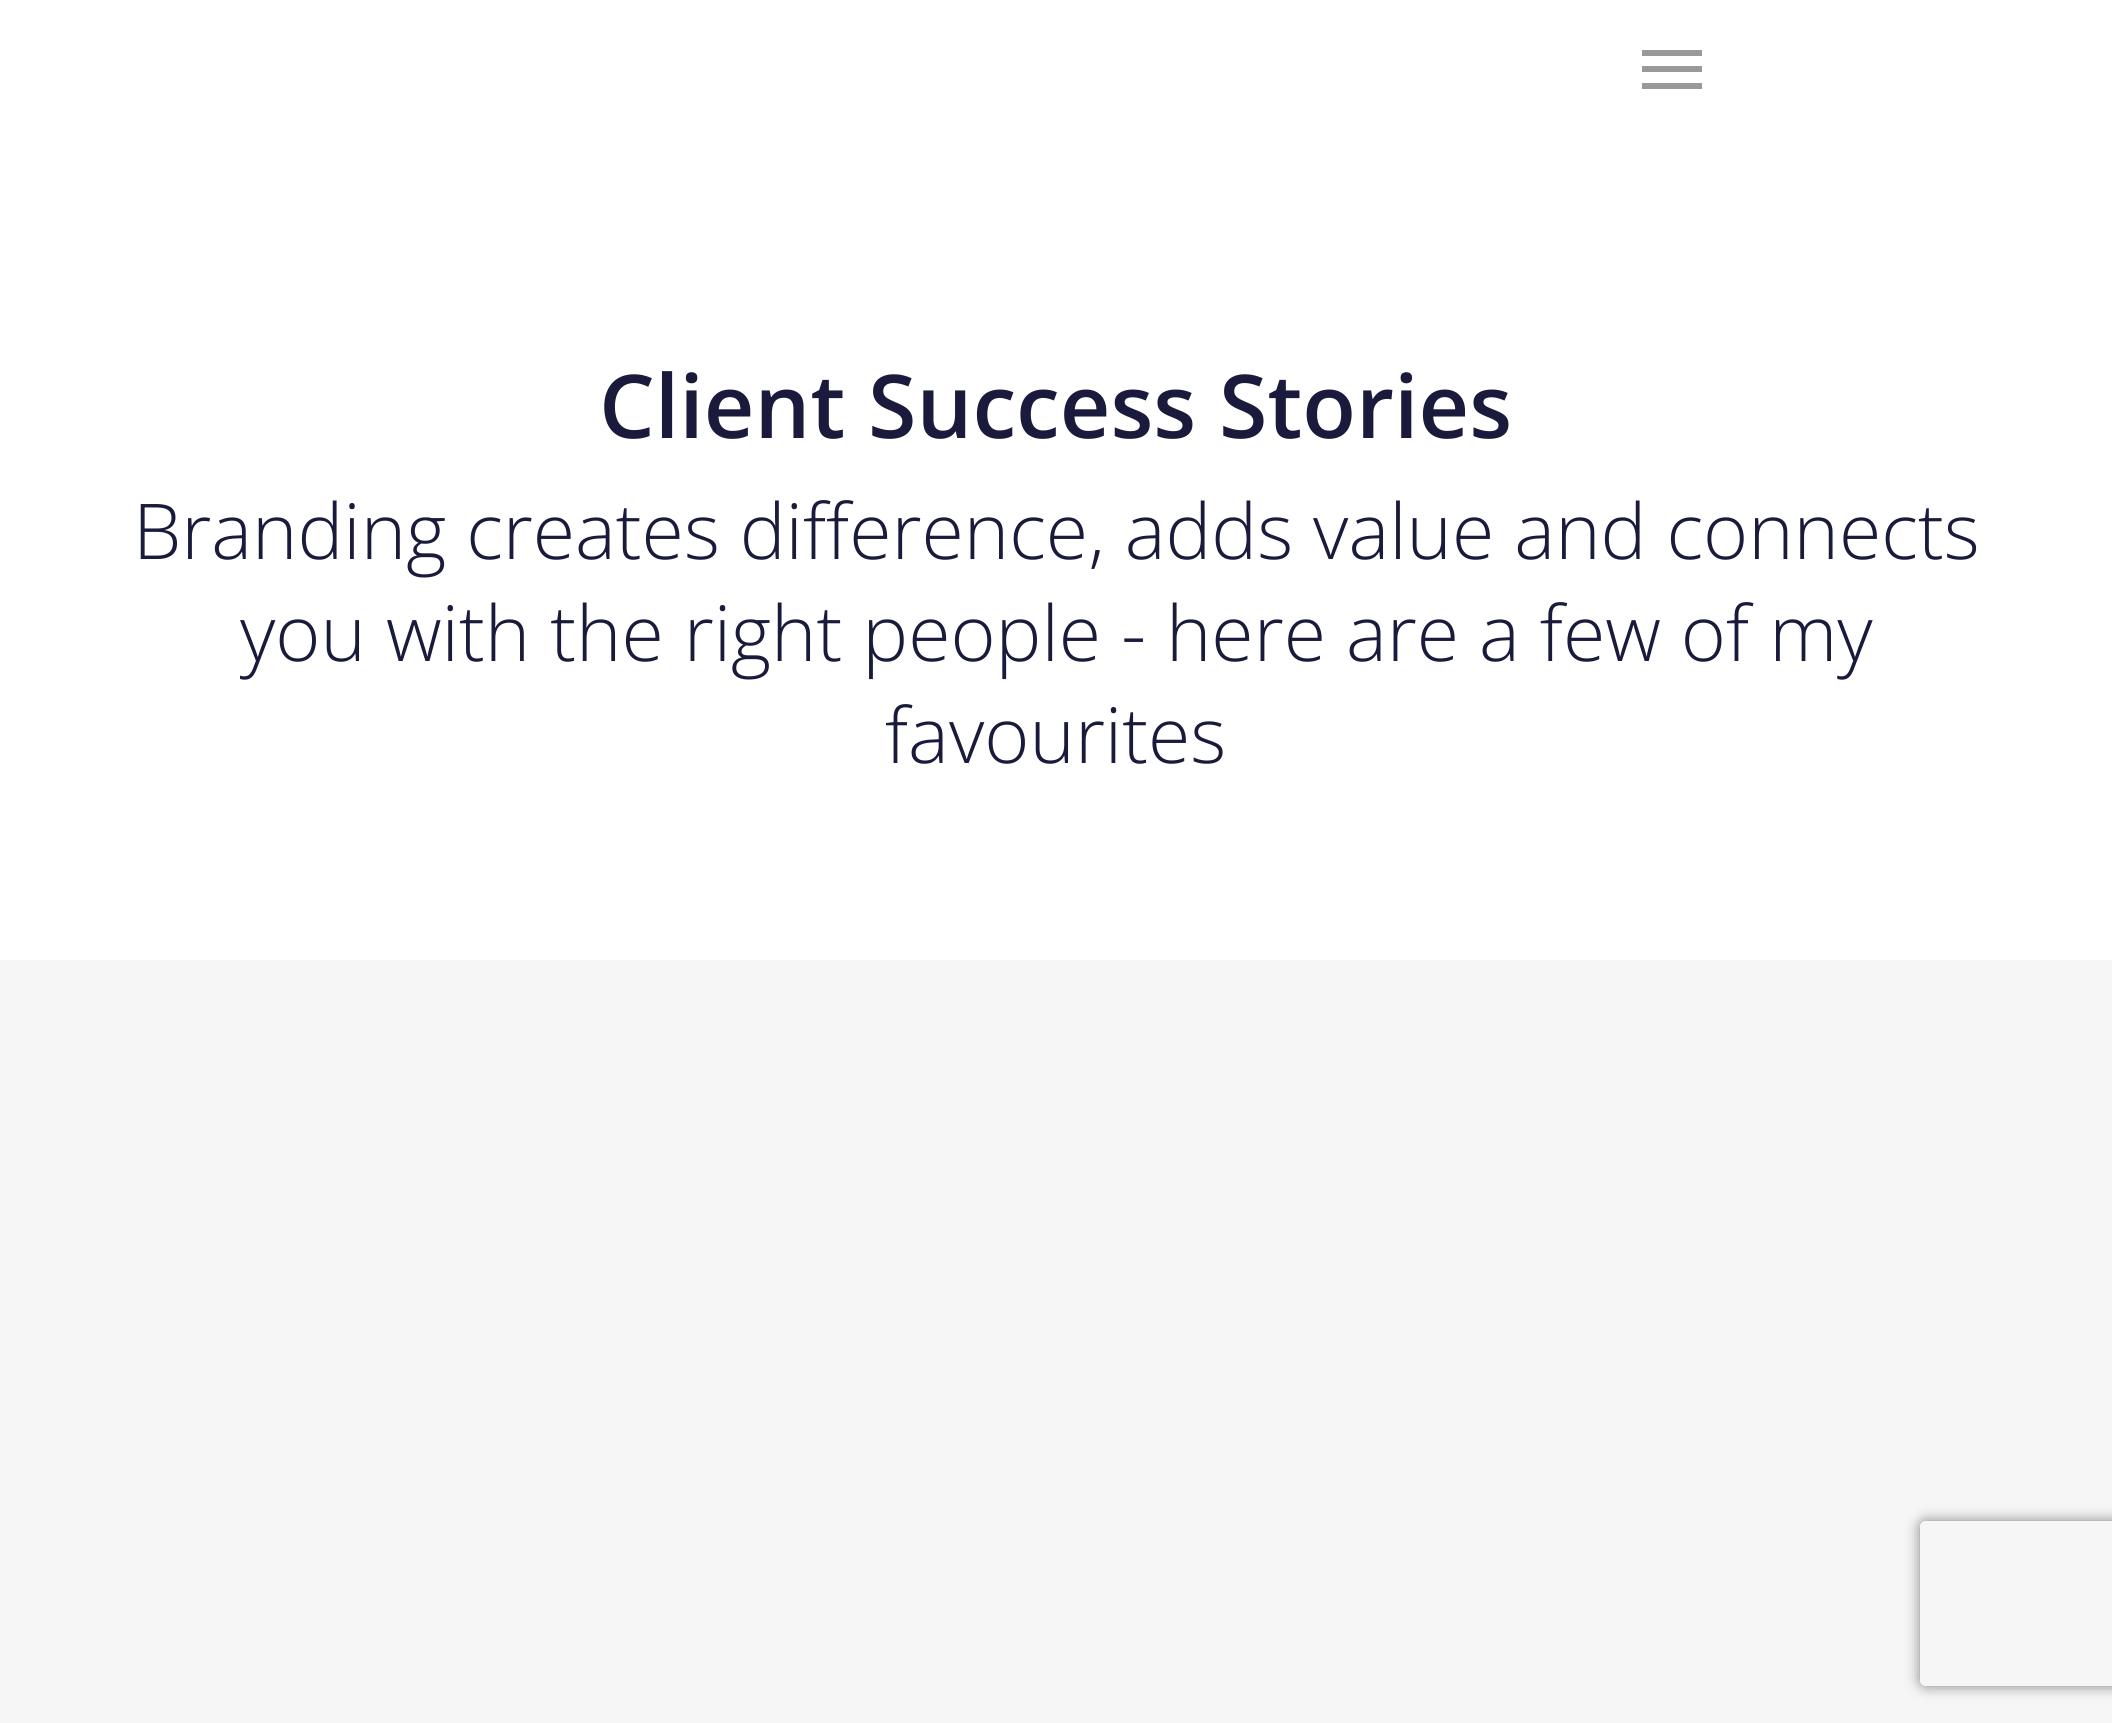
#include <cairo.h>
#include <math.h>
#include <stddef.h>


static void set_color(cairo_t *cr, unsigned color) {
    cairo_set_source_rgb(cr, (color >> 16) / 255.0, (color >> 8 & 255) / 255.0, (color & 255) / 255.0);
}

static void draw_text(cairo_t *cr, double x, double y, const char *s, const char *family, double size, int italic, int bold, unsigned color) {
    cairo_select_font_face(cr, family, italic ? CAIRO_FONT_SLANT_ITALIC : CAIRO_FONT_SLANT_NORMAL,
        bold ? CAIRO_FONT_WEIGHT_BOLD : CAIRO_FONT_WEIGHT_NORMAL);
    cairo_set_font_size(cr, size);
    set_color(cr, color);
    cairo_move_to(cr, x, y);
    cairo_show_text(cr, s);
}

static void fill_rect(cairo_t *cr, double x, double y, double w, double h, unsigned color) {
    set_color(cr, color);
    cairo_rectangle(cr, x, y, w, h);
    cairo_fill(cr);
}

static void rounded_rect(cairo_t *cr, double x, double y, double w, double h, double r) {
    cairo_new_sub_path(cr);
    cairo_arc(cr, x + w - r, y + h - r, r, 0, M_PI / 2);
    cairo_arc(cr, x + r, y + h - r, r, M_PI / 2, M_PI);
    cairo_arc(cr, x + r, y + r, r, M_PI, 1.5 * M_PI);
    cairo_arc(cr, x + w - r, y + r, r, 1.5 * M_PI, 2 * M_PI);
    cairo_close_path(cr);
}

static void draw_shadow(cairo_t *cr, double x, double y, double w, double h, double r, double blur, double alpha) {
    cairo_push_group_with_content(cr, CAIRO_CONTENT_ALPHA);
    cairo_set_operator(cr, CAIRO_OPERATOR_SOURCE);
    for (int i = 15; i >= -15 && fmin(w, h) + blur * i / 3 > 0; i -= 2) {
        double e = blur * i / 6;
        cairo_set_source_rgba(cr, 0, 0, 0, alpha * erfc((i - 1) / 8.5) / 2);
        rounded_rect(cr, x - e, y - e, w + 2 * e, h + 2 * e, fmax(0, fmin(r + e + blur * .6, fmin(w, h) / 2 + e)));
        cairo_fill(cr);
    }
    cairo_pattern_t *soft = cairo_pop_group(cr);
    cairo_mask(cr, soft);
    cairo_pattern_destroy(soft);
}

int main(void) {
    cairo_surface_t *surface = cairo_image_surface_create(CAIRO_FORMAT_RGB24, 2112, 1723);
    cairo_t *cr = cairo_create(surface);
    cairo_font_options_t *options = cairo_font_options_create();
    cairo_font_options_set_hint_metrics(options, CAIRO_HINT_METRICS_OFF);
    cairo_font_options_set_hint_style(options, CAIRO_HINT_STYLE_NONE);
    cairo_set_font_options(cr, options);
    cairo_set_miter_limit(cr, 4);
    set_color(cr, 0xFFFFFF);
    cairo_paint(cr);
    fill_rect(cr, 1642, 50, 60, 6, 0x999999);
    fill_rect(cr, 1642, 83, 60, 6, 0x999999);
    fill_rect(cr, 1642, 66, 60, 6, 0x999999);
    draw_text(cr, 599, 438, "Client Success Stories", "Open Sans SemiBold", 88, 0, 0, 0x1A1A3C);
    draw_text(cr, 133, 559, "Branding creates difference, adds value and connects", "Open Sans Light", 77, 0, 0, 0x1A1A3C);
    draw_text(cr, 240, 661, "you with the right people - here are a few of my", "Open Sans Light", 77, 0, 0, 0x1A1A3C);
    draw_text(cr, 885, 763, "favourites", "Open Sans Light", 77, 0, 0, 0x1A1A3C);
    fill_rect(cr, 0, 960, 2112, 763, 0xF6F6F6);
    cairo_save(cr);
    cairo_set_fill_rule(cr, CAIRO_FILL_RULE_EVEN_ODD);
    cairo_new_path(cr);
    cairo_move_to(cr, 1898, 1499);
    cairo_line_to(cr, 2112, 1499);
    cairo_line_to(cr, 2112, 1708);
    cairo_line_to(cr, 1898, 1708);
    cairo_close_path(cr);
    cairo_move_to(cr, 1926, 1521);
    cairo_line_to(cr, 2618, 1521);
    cairo_curve_to(cr, 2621.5, 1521, 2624, 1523.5, 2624, 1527);
    cairo_line_to(cr, 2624, 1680);
    cairo_curve_to(cr, 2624, 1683.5, 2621.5, 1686, 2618, 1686);
    cairo_line_to(cr, 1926, 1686);
    cairo_curve_to(cr, 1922.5, 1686, 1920, 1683.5, 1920, 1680);
    cairo_line_to(cr, 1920, 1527);
    cairo_curve_to(cr, 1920, 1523.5, 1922.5, 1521, 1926, 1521);
    cairo_close_path(cr);
    cairo_clip(cr);
    set_color(cr, 0x808080);
    draw_shadow(cr, 1920, 1521, 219, 165, 6, 7, 1);
    cairo_restore(cr);
    cairo_surface_write_to_png(surface, "output.png");
    cairo_font_options_destroy(options);
    cairo_destroy(cr);
    cairo_surface_destroy(surface);
    return 0;
}
